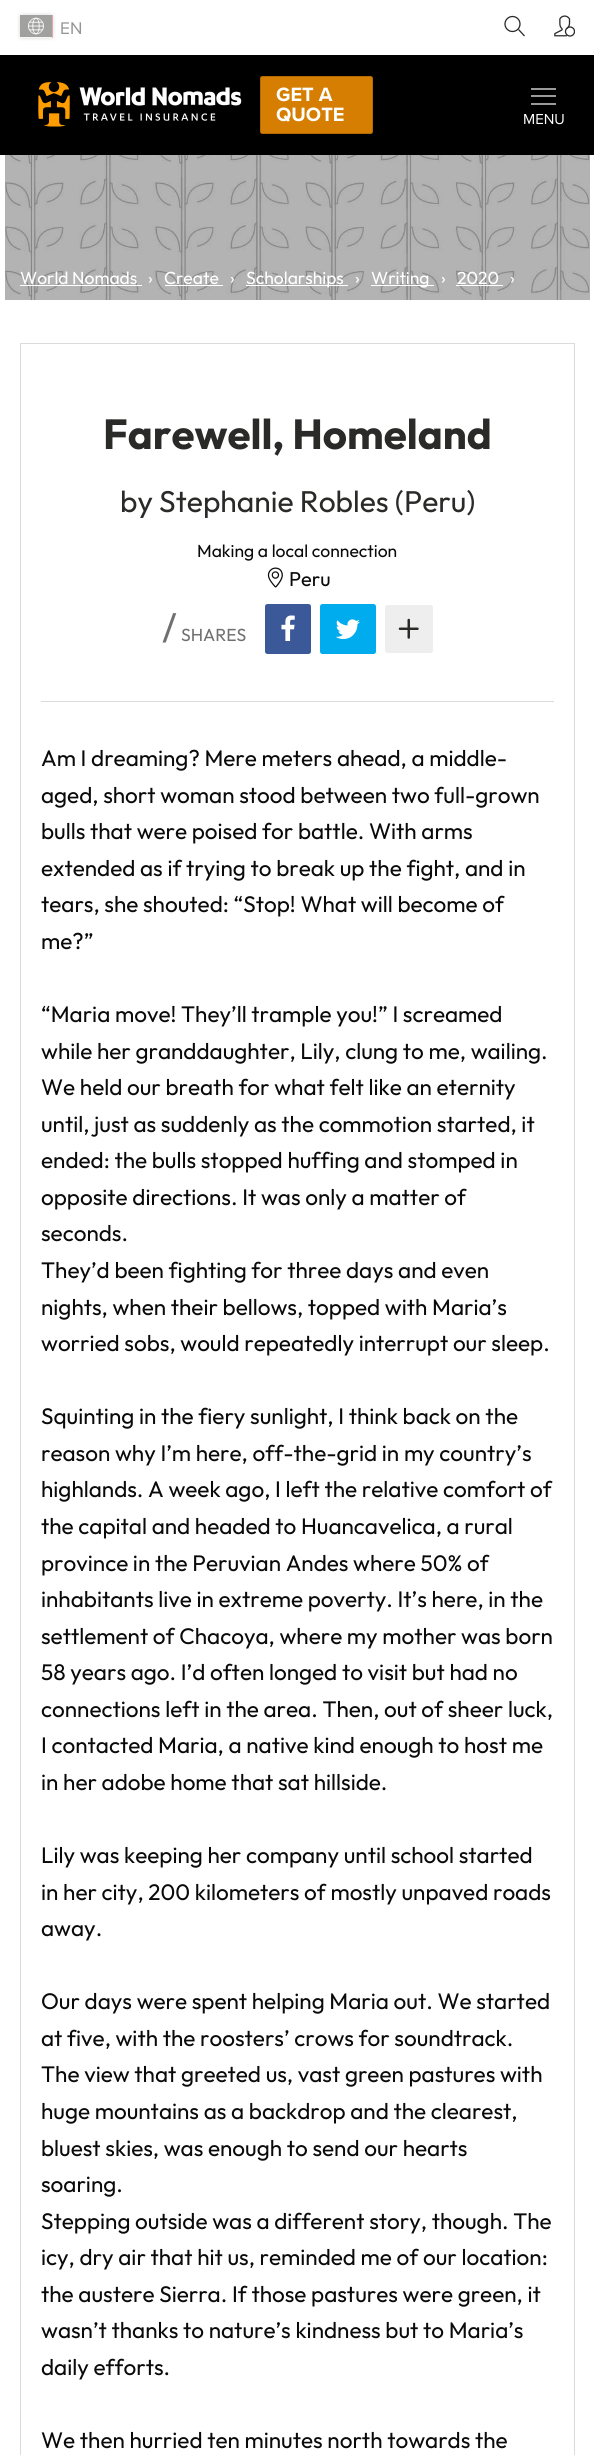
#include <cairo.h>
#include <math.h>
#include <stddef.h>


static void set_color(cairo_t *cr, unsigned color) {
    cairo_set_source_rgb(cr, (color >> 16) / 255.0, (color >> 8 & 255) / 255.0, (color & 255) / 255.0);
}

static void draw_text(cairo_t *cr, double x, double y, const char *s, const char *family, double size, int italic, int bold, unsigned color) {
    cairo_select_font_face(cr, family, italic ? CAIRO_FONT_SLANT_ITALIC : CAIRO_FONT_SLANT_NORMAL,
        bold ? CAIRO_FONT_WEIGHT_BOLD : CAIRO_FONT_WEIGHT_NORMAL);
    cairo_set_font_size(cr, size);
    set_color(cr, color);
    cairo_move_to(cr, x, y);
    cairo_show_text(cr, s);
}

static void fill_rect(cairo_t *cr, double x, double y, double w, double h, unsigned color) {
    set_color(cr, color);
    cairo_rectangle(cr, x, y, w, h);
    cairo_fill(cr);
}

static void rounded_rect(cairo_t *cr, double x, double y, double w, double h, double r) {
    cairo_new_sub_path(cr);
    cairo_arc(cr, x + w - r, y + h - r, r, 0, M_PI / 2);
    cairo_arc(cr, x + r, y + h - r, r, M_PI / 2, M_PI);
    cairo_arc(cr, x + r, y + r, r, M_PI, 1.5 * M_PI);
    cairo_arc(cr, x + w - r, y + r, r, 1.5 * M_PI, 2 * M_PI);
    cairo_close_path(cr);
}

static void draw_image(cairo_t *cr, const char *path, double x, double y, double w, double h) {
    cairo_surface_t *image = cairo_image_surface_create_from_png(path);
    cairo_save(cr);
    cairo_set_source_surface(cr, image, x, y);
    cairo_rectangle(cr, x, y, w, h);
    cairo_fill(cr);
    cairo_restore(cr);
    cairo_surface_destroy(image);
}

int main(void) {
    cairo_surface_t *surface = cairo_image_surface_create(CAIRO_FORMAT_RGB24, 594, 2455);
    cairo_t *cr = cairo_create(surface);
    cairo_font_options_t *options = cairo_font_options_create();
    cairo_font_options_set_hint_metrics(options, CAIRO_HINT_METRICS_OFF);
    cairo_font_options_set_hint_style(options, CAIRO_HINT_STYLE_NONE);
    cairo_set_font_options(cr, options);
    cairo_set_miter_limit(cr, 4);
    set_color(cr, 0xFFFFFF);
    cairo_paint(cr);
    draw_image(cr, "assets/img1.png", 17, 12, 39, 29);
    draw_text(cr, 60, 34, "EN", "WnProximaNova", 17.5, 0, 0, 0x959594);
    cairo_new_path(cr);
    cairo_move_to(cr, 518.5, 29.5);
    cairo_line_to(cr, 524.5, 36);
    set_color(cr, 0x2A2B29);
    cairo_set_line_width(cr, 1.3);
    cairo_stroke(cr);
    cairo_arc(cr, 512.5, 24, 7.5, 0, 2 * M_PI);
    cairo_stroke(cr);
    fill_rect(cr, 535, 40, 1, 1, 0xFCFCFC);
    draw_image(cr, "assets/img2.png", 554, 15, 21, 22);
    fill_rect(cr, 0, 55, 594, 100, 0x000000);
    draw_image(cr, "assets/img3.png", 38, 82, 204, 45);
    set_color(cr, 0xD57E02);
    rounded_rect(cr, 260.5, 76.5, 112, 57, 2);
    cairo_fill_preserve(cr);
    set_color(cr, 0xB36A03);
    cairo_set_line_width(cr, 1);
    cairo_stroke(cr);
    draw_text(cr, 276, 101, "GET A", "WnProximaNova", 20, 0, 1, 0xFFFFFF);
    draw_text(cr, 276, 121, "QUOTE", "WnProximaNova", 20, 0, 1, 0xFFFFFF);
    cairo_new_path(cr);
    cairo_move_to(cr, 531, 89);
    cairo_line_to(cr, 556, 89);
    cairo_move_to(cr, 531, 96);
    cairo_line_to(cr, 556, 96);
    cairo_move_to(cr, 531, 104);
    cairo_line_to(cr, 556, 104);
    cairo_set_line_width(cr, 1.2);
    cairo_stroke(cr);
    draw_text(cr, 523, 124, "MENU", "WnProximaNova", 15, 0, 0, 0xFFFFFF);
    draw_image(cr, "assets/img4.png", 5, 155, 585, 145);
    draw_text(cr, 20, 284, "World Nomads", "Outfit", 17.5, 0, 0, 0xFFFFFF);
    fill_rect(cr, 20, 285, 122, 1, 0xFFFFFF);
    draw_text(cr, 148, 284, "›", "Outfit", 17.5, 0, 0, 0xFFFFFF);
    draw_text(cr, 164, 284, "Create", "Outfit", 17.5, 0, 0, 0xFFFFFF);
    fill_rect(cr, 165, 285, 58, 1, 0xFFFFFF);
    draw_text(cr, 230, 284, "›", "Outfit", 17.5, 0, 0, 0xFFFFFF);
    fill_rect(cr, 246, 285, 102, 1, 0xFFFFFF);
    draw_text(cr, 246, 284, "Scholarships", "Outfit", 17.5, 0, 0, 0xFFFFFF);
    draw_text(cr, 355, 284, "›", "Outfit", 17.5, 0, 0, 0xFFFFFF);
    fill_rect(cr, 371, 285, 63, 1, 0xFFFFFF);
    draw_text(cr, 371, 284, "Writing", "Outfit", 17.5, 0, 0, 0xFFFFFF);
    draw_text(cr, 441, 284, "›", "Outfit", 17.5, 0, 0, 0xFFFFFF);
    draw_text(cr, 457, 284, "2020", "Outfit", 17.5, 0, 0, 0xFFFFFF);
    fill_rect(cr, 456, 285, 47, 1, 0xFFFFFF);
    draw_text(cr, 510, 284, "›", "Outfit", 17.5, 0, 0, 0xFFFFFF);
    cairo_rectangle(cr, 20.5, 343.5, 554, 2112);
    set_color(cr, 0xDBDBDB);
    cairo_set_line_width(cr, 1);
    cairo_stroke(cr);
    draw_text(cr, 103, 449, "Farewell, Homeland", "Outfit", 42, 0, 1, 0x2A2B29);
    draw_text(cr, 120, 512, "by Stephanie Robles (Peru)", "Outfit", 30, 0, 0, 0x2A2B29);
    fill_rect(cr, 41, 701, 513, 1, 0xDBDBDB);
    draw_text(cr, 197, 557, "Making a local connection", "Outfit", 17.5, 0, 0, 0x0A0A0A);
    draw_image(cr, "assets/img5.png", 267, 567, 16, 21);
    draw_text(cr, 289, 586, "Peru", "Outfit", 20, 0, 0, 0x0A0A0A);
    draw_text(cr, 162, 641, "/", "Outfit", 38, 0, 0, 0x707070);
    draw_text(cr, 181, 641, "SHARES", "Outfit", 17.5, 0, 0, 0x707070);
    set_color(cr, 0x3B5998);
    rounded_rect(cr, 265, 604, 46, 50, 2.5);
    cairo_fill(cr);
    set_color(cr, 0x00ACED);
    rounded_rect(cr, 320, 604, 56, 50, 2.5);
    cairo_fill(cr);
    set_color(cr, 0xEEEEEE);
    rounded_rect(cr, 385, 605, 48, 48, 2.5);
    cairo_fill(cr);
    draw_image(cr, "assets/img6.png", 281, 615, 14, 26);
    draw_image(cr, "assets/img7.png", 335, 619, 25, 21);
    draw_image(cr, "assets/img8.png", 398, 618, 21, 21);
    draw_text(cr, 41, 766, "Am I dreaming? Mere meters ahead, a middle-", "Outfit", 22.5, 0, 0, 0x0A0A0A);
    draw_text(cr, 41, 803, "aged, short woman stood between two full-grown", "Outfit", 22.5, 0, 0, 0x0A0A0A);
    draw_text(cr, 41, 839, "bulls that were poised for battle. With arms", "Outfit", 22.5, 0, 0, 0x0A0A0A);
    draw_text(cr, 41, 876, "extended as if trying to break up the fight, and in", "Outfit", 22.5, 0, 0, 0x0A0A0A);
    draw_text(cr, 41, 912, "tears, she shouted: “Stop! What will become of", "Outfit", 22.5, 0, 0, 0x0A0A0A);
    draw_text(cr, 41, 949, "me?”", "Outfit", 22.5, 0, 0, 0x0A0A0A);
    draw_text(cr, 41, 1022, "“Maria move! They’ll trample you!” I screamed", "Outfit", 22.5, 0, 0, 0x0A0A0A);
    draw_text(cr, 41, 1059, "while her granddaughter, Lily, clung to me, wailing.", "Outfit", 22.5, 0, 0, 0x0A0A0A);
    draw_text(cr, 41, 1095, "We held our breath for what felt like an eternity", "Outfit", 22.5, 0, 0, 0x0A0A0A);
    draw_text(cr, 41, 1132, "until, just as suddenly as the commotion started, it", "Outfit", 22.5, 0, 0, 0x0A0A0A);
    draw_text(cr, 41, 1168, "ended: the bulls stopped huffing and stomped in", "Outfit", 22.5, 0, 0, 0x0A0A0A);
    draw_text(cr, 41, 1205, "opposite directions. It was only a matter of", "Outfit", 22.5, 0, 0, 0x0A0A0A);
    draw_text(cr, 41, 1241, "seconds.", "Outfit", 22.5, 0, 0, 0x0A0A0A);
    draw_text(cr, 41, 1278, "They’d been fighting for three days and even", "Outfit", 22.5, 0, 0, 0x0A0A0A);
    draw_text(cr, 41, 1315, "nights, when their bellows, topped with Maria’s", "Outfit", 22.5, 0, 0, 0x0A0A0A);
    draw_text(cr, 41, 1351, "worried sobs, would repeatedly interrupt our sleep.", "Outfit", 22.5, 0, 0, 0x0A0A0A);
    draw_text(cr, 41, 1424, "Squinting in the fiery sunlight, I think back on the", "Outfit", 22.5, 0, 0, 0x0A0A0A);
    draw_text(cr, 41, 1461, "reason why I’m here, off-the-grid in my country’s", "Outfit", 22.5, 0, 0, 0x0A0A0A);
    draw_text(cr, 41, 1497, "highlands. A week ago, I left the relative comfort of", "Outfit", 22.5, 0, 0, 0x0A0A0A);
    draw_text(cr, 41, 1534, "the capital and headed to Huancavelica, a rural", "Outfit", 22.5, 0, 0, 0x0A0A0A);
    draw_text(cr, 41, 1571, "province in the Peruvian Andes where 50% of", "Outfit", 22.5, 0, 0, 0x0A0A0A);
    draw_text(cr, 41, 1607, "inhabitants live in extreme poverty. It’s here, in the", "Outfit", 22.5, 0, 0, 0x0A0A0A);
    draw_text(cr, 41, 1644, "settlement of Chacoya, where my mother was born", "Outfit", 22.5, 0, 0, 0x0A0A0A);
    draw_text(cr, 41, 1680, "58 years ago. I’d often longed to visit but had no", "Outfit", 22.5, 0, 0, 0x0A0A0A);
    draw_text(cr, 41, 1717, "connections left in the area. Then, out of sheer luck,", "Outfit", 22.5, 0, 0, 0x0A0A0A);
    draw_text(cr, 41, 1753, "I contacted Maria, a native kind enough to host me", "Outfit", 22.5, 0, 0, 0x0A0A0A);
    draw_text(cr, 41, 1790, "in her adobe home that sat hillside.", "Outfit", 22.5, 0, 0, 0x0A0A0A);
    draw_text(cr, 41, 1863, "Lily was keeping her company until school started", "Outfit", 22.5, 0, 0, 0x0A0A0A);
    draw_text(cr, 41, 1900, "in her city, 200 kilometers of mostly unpaved roads", "Outfit", 22.5, 0, 0, 0x0A0A0A);
    draw_text(cr, 41, 1936, "away.", "Outfit", 22.5, 0, 0, 0x0A0A0A);
    draw_text(cr, 41, 2009, "Our days were spent helping Maria out. We started", "Outfit", 22.5, 0, 0, 0x0A0A0A);
    draw_text(cr, 41, 2046, "at five, with the roosters’ crows for soundtrack.", "Outfit", 22.5, 0, 0, 0x0A0A0A);
    draw_text(cr, 41, 2082, "The view that greeted us, vast green pastures with", "Outfit", 22.5, 0, 0, 0x0A0A0A);
    draw_text(cr, 41, 2119, "huge mountains as a backdrop and the clearest,", "Outfit", 22.5, 0, 0, 0x0A0A0A);
    draw_text(cr, 41, 2156, "bluest skies, was enough to send our hearts", "Outfit", 22.5, 0, 0, 0x0A0A0A);
    draw_text(cr, 41, 2192, "soaring.", "Outfit", 22.5, 0, 0, 0x0A0A0A);
    draw_text(cr, 41, 2229, "Stepping outside was a different story, though. The", "Outfit", 22.5, 0, 0, 0x0A0A0A);
    draw_text(cr, 41, 2265, "icy, dry air that hit us, reminded me of our location:", "Outfit", 22.5, 0, 0, 0x0A0A0A);
    draw_text(cr, 41, 2302, "the austere Sierra. If those pastures were green, it", "Outfit", 22.5, 0, 0, 0x0A0A0A);
    draw_text(cr, 41, 2338, "wasn’t thanks to nature’s kindness but to Maria’s", "Outfit", 22.5, 0, 0, 0x0A0A0A);
    draw_text(cr, 41, 2375, "daily efforts.", "Outfit", 22.5, 0, 0, 0x0A0A0A);
    draw_text(cr, 41, 2448, "We then hurried ten minutes north towards the", "Outfit", 22.5, 0, 0, 0x0A0A0A);
    cairo_surface_write_to_png(surface, "output.png");
    cairo_font_options_destroy(options);
    cairo_destroy(cr);
    cairo_surface_destroy(surface);
    return 0;
}
